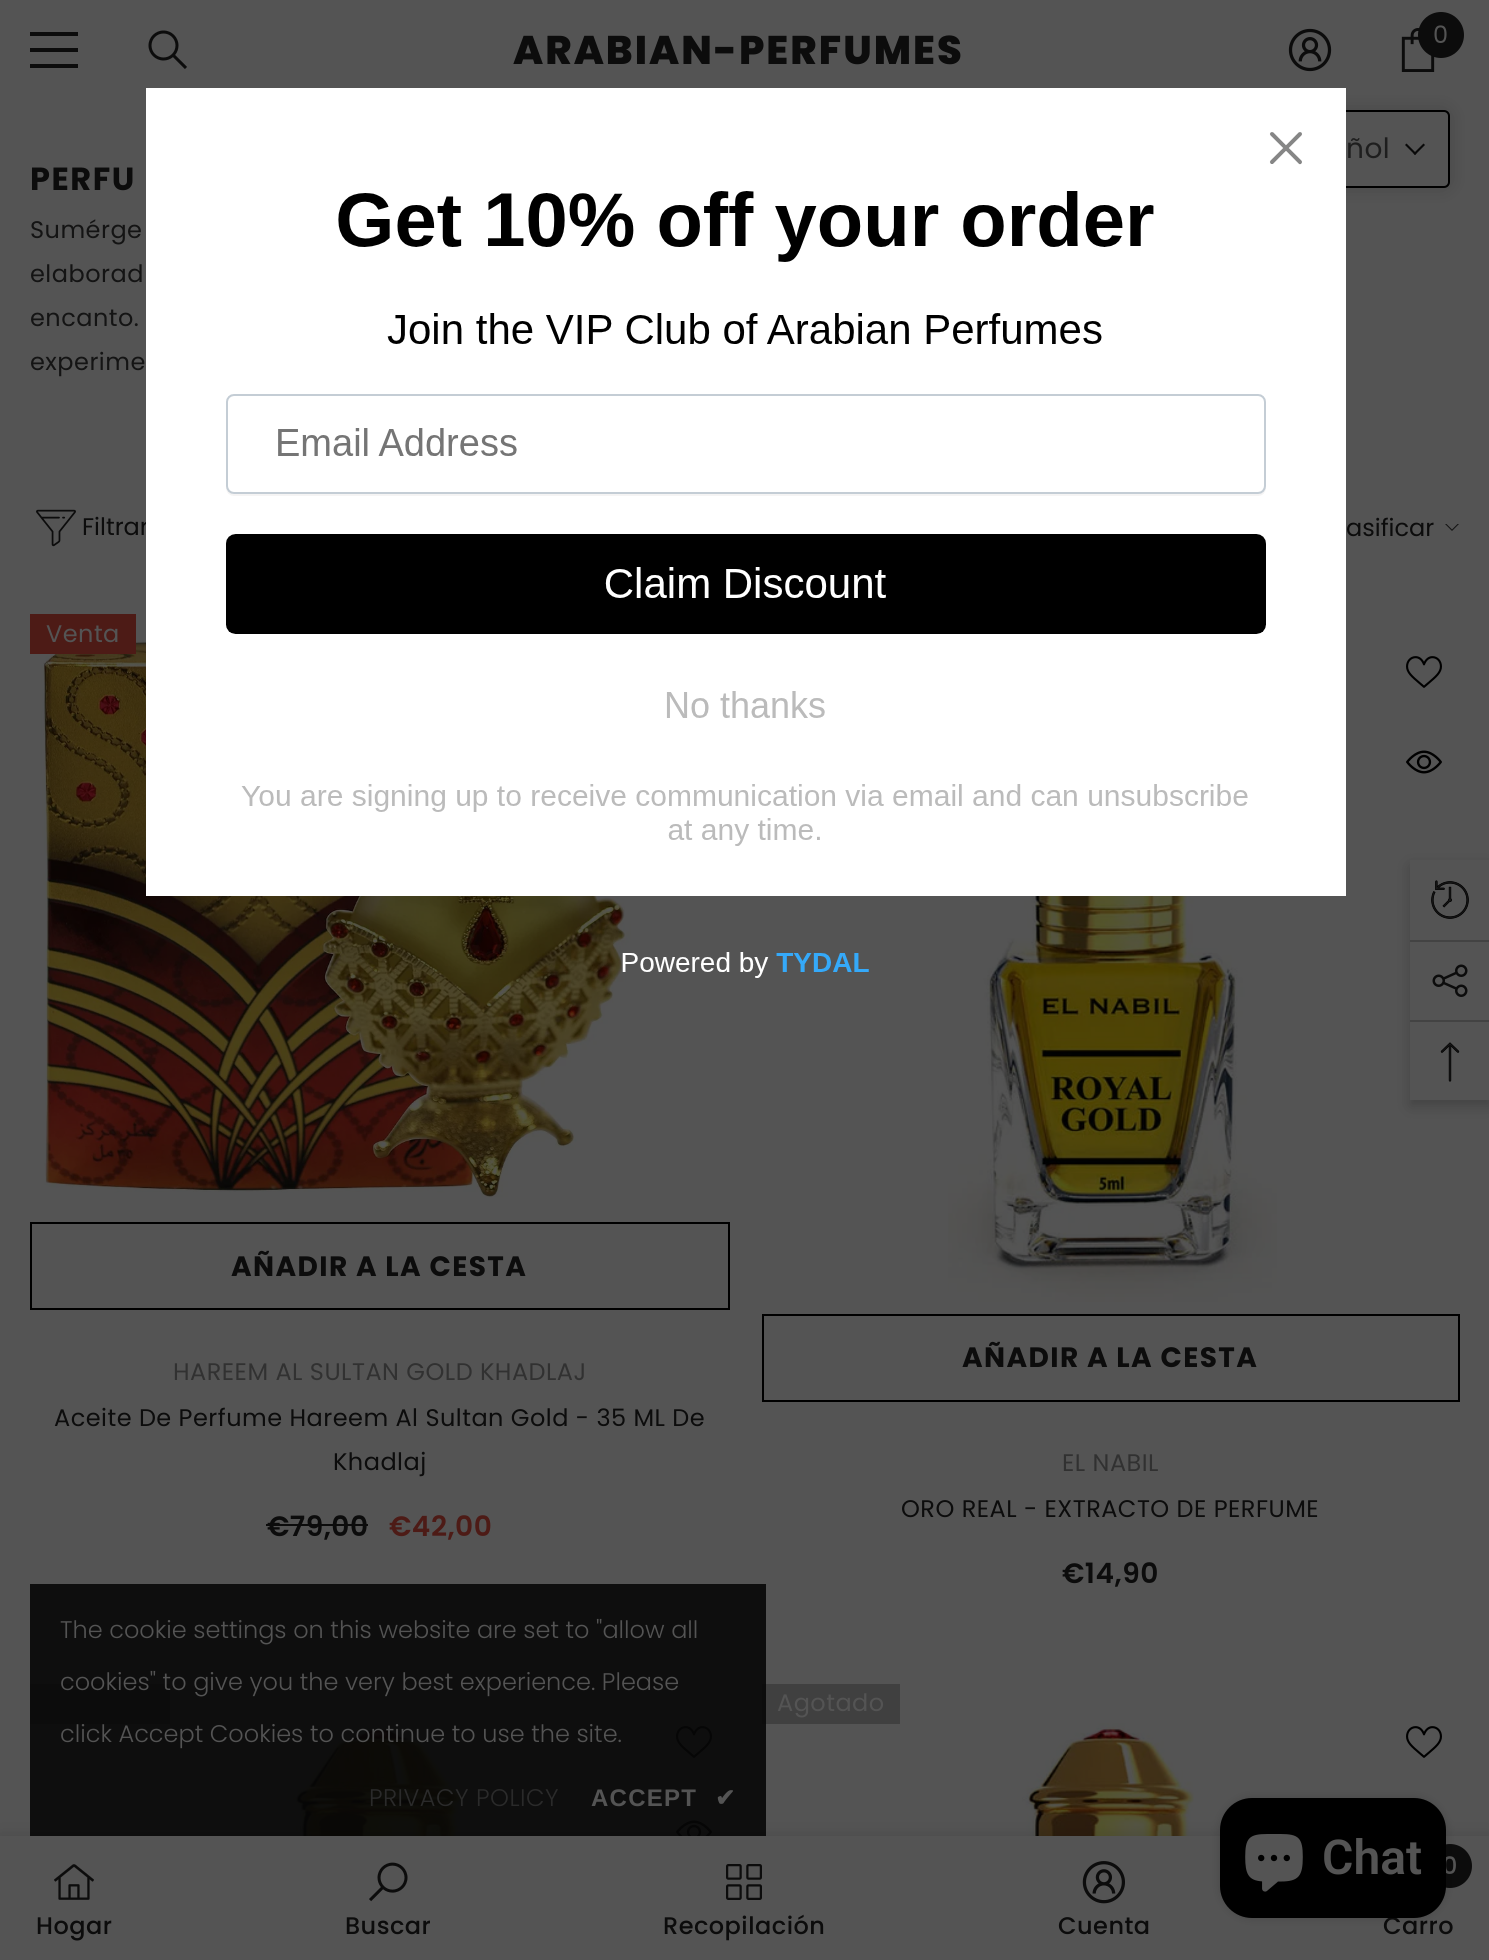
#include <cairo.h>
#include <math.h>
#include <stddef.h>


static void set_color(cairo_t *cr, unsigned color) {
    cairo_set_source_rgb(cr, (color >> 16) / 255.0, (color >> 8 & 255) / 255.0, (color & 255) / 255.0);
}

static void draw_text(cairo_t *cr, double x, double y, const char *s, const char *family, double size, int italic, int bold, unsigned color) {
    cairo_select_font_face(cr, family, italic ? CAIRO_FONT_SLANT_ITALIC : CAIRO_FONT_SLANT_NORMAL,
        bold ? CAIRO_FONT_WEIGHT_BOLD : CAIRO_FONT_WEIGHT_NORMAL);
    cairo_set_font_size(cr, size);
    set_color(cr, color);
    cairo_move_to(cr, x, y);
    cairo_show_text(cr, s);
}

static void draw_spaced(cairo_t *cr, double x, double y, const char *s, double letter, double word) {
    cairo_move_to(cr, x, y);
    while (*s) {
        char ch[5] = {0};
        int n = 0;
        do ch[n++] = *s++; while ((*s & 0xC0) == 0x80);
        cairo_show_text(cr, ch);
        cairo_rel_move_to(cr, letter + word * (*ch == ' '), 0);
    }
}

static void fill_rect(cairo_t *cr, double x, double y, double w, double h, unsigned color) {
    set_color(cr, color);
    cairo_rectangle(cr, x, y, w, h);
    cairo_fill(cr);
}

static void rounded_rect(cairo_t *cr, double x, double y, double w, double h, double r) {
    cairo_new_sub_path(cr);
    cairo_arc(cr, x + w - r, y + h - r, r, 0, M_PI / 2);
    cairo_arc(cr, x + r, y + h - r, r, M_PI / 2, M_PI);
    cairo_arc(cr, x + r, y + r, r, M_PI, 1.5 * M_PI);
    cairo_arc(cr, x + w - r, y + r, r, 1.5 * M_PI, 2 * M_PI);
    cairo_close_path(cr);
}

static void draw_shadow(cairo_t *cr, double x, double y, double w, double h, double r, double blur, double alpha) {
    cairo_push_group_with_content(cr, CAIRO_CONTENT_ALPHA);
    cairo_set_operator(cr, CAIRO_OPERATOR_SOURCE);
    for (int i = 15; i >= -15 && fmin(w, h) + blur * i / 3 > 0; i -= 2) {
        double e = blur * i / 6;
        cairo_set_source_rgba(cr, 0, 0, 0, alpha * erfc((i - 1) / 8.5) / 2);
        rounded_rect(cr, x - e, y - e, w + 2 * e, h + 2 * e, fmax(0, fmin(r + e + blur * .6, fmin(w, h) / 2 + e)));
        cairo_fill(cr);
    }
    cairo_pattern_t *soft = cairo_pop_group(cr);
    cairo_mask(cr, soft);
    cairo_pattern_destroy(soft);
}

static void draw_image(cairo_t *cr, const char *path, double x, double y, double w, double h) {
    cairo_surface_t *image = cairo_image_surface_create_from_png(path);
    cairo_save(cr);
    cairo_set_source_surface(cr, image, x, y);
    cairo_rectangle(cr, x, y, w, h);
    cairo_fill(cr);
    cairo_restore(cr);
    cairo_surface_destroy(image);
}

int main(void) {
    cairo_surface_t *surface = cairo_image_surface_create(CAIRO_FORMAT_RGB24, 1489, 1960);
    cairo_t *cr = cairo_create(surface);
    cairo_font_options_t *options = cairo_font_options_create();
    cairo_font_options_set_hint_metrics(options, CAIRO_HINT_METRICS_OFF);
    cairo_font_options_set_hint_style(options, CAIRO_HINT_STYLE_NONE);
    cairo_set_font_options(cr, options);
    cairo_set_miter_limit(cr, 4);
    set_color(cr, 0xFFFFFF);
    cairo_paint(cr);
    fill_rect(cr, 30, 48, 48, 4, 0x232323);
    fill_rect(cr, 30, 32, 48, 4, 0x232323);
    fill_rect(cr, 30, 64, 48, 4, 0x232323);
    draw_image(cr, "assets/img2.png", 148, 30, 39, 39);
    cairo_select_font_face(cr, "Poppins ExtraBold", CAIRO_FONT_SLANT_NORMAL, CAIRO_FONT_WEIGHT_NORMAL);
    cairo_set_font_size(cr, 40);
    draw_spaced(cr, 513, 64, "ARABIAN-PERFUMES", 2, 0);
    draw_image(cr, "assets/img3.png", 1288, 28, 44, 44);
    draw_image(cr, "assets/img4.png", 1401, 28, 34, 44);
    cairo_arc(cr, 1441, 35, 23, 0, 2 * M_PI);
    cairo_fill(cr);
    draw_text(cr, 1433, 43, "0", "Poppins", 24, 0, 0, 0xFFFFFF);
    cairo_select_font_face(cr, "Poppins", CAIRO_FONT_SLANT_NORMAL, CAIRO_FONT_WEIGHT_BOLD);
    cairo_set_font_size(cr, 32);
    set_color(cr, 0x232323);
    draw_spaced(cr, 30, 190, "PERFU", 1.5, 0);
    cairo_select_font_face(cr, "Poppins", CAIRO_FONT_SLANT_NORMAL, CAIRO_FONT_WEIGHT_NORMAL);
    cairo_set_font_size(cr, 24);
    set_color(cr, 0x3C3C3C);
    draw_spaced(cr, 30, 238, "Sumérge", 0.48, 0);
    draw_spaced(cr, 30, 282, "elaborad", 0.48, 0);
    draw_spaced(cr, 30, 326, "encanto.", 0.48, 0);
    draw_spaced(cr, 30, 370, "experime", 0.48, 0);
    draw_image(cr, "assets/img5.png", 36, 509, 40, 38);
    draw_text(cr, 82, 535, "Filtrar", "Poppins", 24, 0, 0, 0x232323);
    draw_text(cr, 1346, 536, "asificar", "Poppins", 24, 0, 0, 0x232323);
    draw_image(cr, "assets/img6.png", 1445, 524, 14, 7);
    draw_image(cr, "assets/img7.png", 41, 638, 590, 560);
    fill_rect(cr, 30, 614, 106, 40, 0xE95144);
    set_color(cr, 0xFFFFFF);
    draw_spaced(cr, 46, 642, "Venta", 0.48, 0);
    cairo_rectangle(cr, 31, 1223, 698, 86);
    set_color(cr, 0x000000);
    cairo_stroke(cr);
    cairo_select_font_face(cr, "Poppins", CAIRO_FONT_SLANT_NORMAL, CAIRO_FONT_WEIGHT_BOLD);
    cairo_set_font_size(cr, 28);
    set_color(cr, 0x232323);
    draw_spaced(cr, 231, 1276, "AÑADIR A LA CESTA", 1.4, 0);
    cairo_select_font_face(cr, "Poppins", CAIRO_FONT_SLANT_NORMAL, CAIRO_FONT_WEIGHT_NORMAL);
    cairo_set_font_size(cr, 24);
    set_color(cr, 0x969696);
    draw_spaced(cr, 173, 1380, "HAREEM AL SULTAN GOLD KHADLAJ", 0.48, 0);
    set_color(cr, 0x232323);
    draw_spaced(cr, 54, 1426, "Aceite De Perfume Hareem Al Sultan Gold - 35 ML De", 0.48, 0);
    draw_spaced(cr, 333, 1470, "Khadlaj", 0.48, 0);
    cairo_select_font_face(cr, "Poppins SemiBold", CAIRO_FONT_SLANT_NORMAL, CAIRO_FONT_WEIGHT_NORMAL);
    cairo_set_font_size(cr, 28);
    draw_spaced(cr, 267, 1536, "€79,00", 0.5, 0);
    fill_rect(cr, 266, 1524, 102, 2, 0x232323);
    set_color(cr, 0xE95144);
    draw_spaced(cr, 389, 1536, "€42,00", 0.5, 0);
    draw_image(cr, "assets/img8.png", 1406, 656, 36, 32);
    draw_image(cr, "assets/img9.png", 1406, 750, 36, 24);
    draw_image(cr, "assets/img10.png", 948, 896, 329, 406);
    cairo_rectangle(cr, 763, 1315, 696, 86);
    set_color(cr, 0x000000);
    cairo_stroke(cr);
    cairo_select_font_face(cr, "Poppins", CAIRO_FONT_SLANT_NORMAL, CAIRO_FONT_WEIGHT_BOLD);
    set_color(cr, 0x232323);
    draw_spaced(cr, 962, 1367, "AÑADIR A LA CESTA", 1.4, 0);
    cairo_select_font_face(cr, "Poppins", CAIRO_FONT_SLANT_NORMAL, CAIRO_FONT_WEIGHT_NORMAL);
    cairo_set_font_size(cr, 24);
    set_color(cr, 0x969696);
    draw_spaced(cr, 1062, 1471, "EL NABIL", 0.48, 0);
    set_color(cr, 0x232323);
    draw_spaced(cr, 901, 1517, "ORO REAL - EXTRACTO DE PERFUME", 0.48, 0);
    cairo_select_font_face(cr, "Poppins SemiBold", CAIRO_FONT_SLANT_NORMAL, CAIRO_FONT_WEIGHT_NORMAL);
    cairo_set_font_size(cr, 28);
    draw_spaced(cr, 1062, 1583, "€14,90", 0.5, 0);
    fill_rect(cr, 30, 1684, 140, 40, 0xC1C1C1);
    draw_image(cr, "assets/img11.png", 291, 1724, 173, 112);
    draw_image(cr, "assets/img8.png", 676, 1726, 36, 32);
    draw_image(cr, "assets/img12.png", 676, 1820, 36, 16);
    fill_rect(cr, 762, 1684, 138, 40, 0xC1C1C1);
    cairo_select_font_face(cr, "Poppins", CAIRO_FONT_SLANT_NORMAL, CAIRO_FONT_WEIGHT_NORMAL);
    cairo_set_font_size(cr, 24);
    set_color(cr, 0xFFFFFF);
    draw_spaced(cr, 777, 1711, "Agotado", 0.48, 0);
    draw_image(cr, "assets/img13.png", 1022, 1723, 172, 113);
    draw_image(cr, "assets/img8.png", 1406, 1726, 36, 32);
    cairo_set_source_rgba(cr, 0.078, 0.078, 0.078, 0.9);
    cairo_rectangle(cr, 30, 1584, 736, 252);
    cairo_fill(cr);
    set_color(cr, 0x000000);
    draw_shadow(cr, 0, 1836, 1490, 124, 0, 9, 0.12);
    fill_rect(cr, 0, 1836, 1489, 124, 0xFFFFFF);
    draw_image(cr, "assets/img14.png", 54, 1864, 40, 36);
    cairo_select_font_face(cr, "Poppins Medium", CAIRO_FONT_SLANT_NORMAL, CAIRO_FONT_WEIGHT_NORMAL);
    set_color(cr, 0x232323);
    draw_spaced(cr, 36, 1934, "Hogar", 0.48, 0);
    draw_image(cr, "assets/img15.png", 369, 1862, 39, 40);
    draw_spaced(cr, 345, 1934, "Buscar", 0.48, 0);
    draw_image(cr, "assets/img16.png", 726, 1864, 36, 36);
    draw_spaced(cr, 663, 1934, "Recopilación", 0.48, 0);
    draw_image(cr, "assets/img17.png", 1082, 1861, 43, 43);
    draw_spaced(cr, 1058, 1934, "Cuenta", 0.48, 0);
    cairo_new_path(cr);
    cairo_arc(cr, 1450, 1866, 22, 0, 2 * M_PI);
    cairo_fill(cr);
    draw_text(cr, 1442, 1874, "0", "Poppins Medium", 24, 0, 0, 0xFFFFFF);
    set_color(cr, 0x232323);
    draw_spaced(cr, 1383, 1934, "Carro", 0.48, 0);
    set_color(cr, 0x000000);
    draw_shadow(cr, 1206, 110, 244, 78, 6, 10, 0.15);
    set_color(cr, 0xFFFFFF);
    rounded_rect(cr, 1207, 111, 242, 76, 5);
    cairo_fill_preserve(cr);
    set_color(cr, 0x000000);
    cairo_stroke(cr);
    cairo_select_font_face(cr, "Poppins", CAIRO_FONT_SLANT_NORMAL, CAIRO_FONT_WEIGHT_NORMAL);
    cairo_set_font_size(cr, 28);
    set_color(cr, 0x5C5C5C);
    draw_spaced(cr, 1346, 158, "ñol", 0.48, 0);
    set_color(cr, 0x1A1A1A);
    cairo_new_path(cr);
    cairo_move_to(cr, 1423.5, 143.5);
    cairo_line_to(cr, 1425, 145);
    cairo_line_to(cr, 1415, 155);
    cairo_line_to(cr, 1413.5, 153.5);
    cairo_close_path(cr);
    cairo_fill(cr);
    cairo_new_path(cr);
    cairo_move_to(cr, 1406.5, 143.5);
    cairo_line_to(cr, 1416.5, 153.5);
    cairo_line_to(cr, 1415, 155);
    cairo_line_to(cr, 1405, 145);
    cairo_close_path(cr);
    cairo_fill(cr);
    cairo_save(cr);
    cairo_set_fill_rule(cr, CAIRO_FILL_RULE_EVEN_ODD);
    cairo_new_path(cr);
    cairo_move_to(cr, 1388, 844);
    cairo_line_to(cr, 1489, 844);
    cairo_line_to(cr, 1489, 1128);
    cairo_line_to(cr, 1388, 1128);
    cairo_close_path(cr);
    cairo_move_to(cr, 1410, 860);
    cairo_line_to(cr, 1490, 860);
    cairo_line_to(cr, 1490, 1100);
    cairo_line_to(cr, 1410, 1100);
    cairo_close_path(cr);
    cairo_clip(cr);
    set_color(cr, 0x000000);
    draw_shadow(cr, 1410, 866, 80, 240, 0, 7, 0.2);
    cairo_restore(cr);
    draw_image(cr, "assets/img18.png", 1431, 880, 38, 39);
    fill_rect(cr, 1410, 940, 79, 2, 0xCCCCCC);
    draw_image(cr, "assets/img19.png", 1432, 964, 36, 33);
    fill_rect(cr, 1410, 1020, 79, 2, 0xCCCCCC);
    draw_image(cr, "assets/img20.png", 1440, 1042, 20, 40);
    draw_text(cr, 60, 1638, "The cookie settings on this website are set to \"allow all", "Poppins Light", 24, 0, 0, 0xFFFFFF);
    draw_text(cr, 60, 1690, "cookies\" to give you the very best experience. Please", "Poppins Light", 24, 0, 0, 0xFFFFFF);
    draw_text(cr, 60, 1742, "click Accept Cookies to continue to use the site.", "Poppins Light", 24, 0, 0, 0xFFFFFF);
    set_color(cr, 0x818181);
    draw_spaced(cr, 369, 1806, "PRIVACY POLICY", 0.48, 0);
    cairo_select_font_face(cr, "Liberation Sans", CAIRO_FONT_SLANT_NORMAL, CAIRO_FONT_WEIGHT_BOLD);
    set_color(cr, 0xFFFFFF);
    draw_spaced(cr, 591, 1806, "ACCEPT", 1.25, 0);
    cairo_select_font_face(cr, "DejaVu Sans", CAIRO_FONT_SLANT_NORMAL, CAIRO_FONT_WEIGHT_BOLD);
    draw_spaced(cr, 715, 1806, "✔", 1.25, 0);
    set_color(cr, 0x000000);
    draw_shadow(cr, 1220, 1798, 226, 120, 32, 5, 0.15);
    set_color(cr, 0x000000);
    rounded_rect(cr, 1220, 1798, 226, 120, 32);
    cairo_fill(cr);
    draw_image(cr, "assets/img21.png", 1245, 1834, 58, 58);
    draw_text(cr, 1322, 1874, "Chat", "Roboto SemiBold", 48, 0, 0, 0xFFFFFF);
    draw_image(cr, "assets/img1.png", 0, 0, 1489, 1960);
    cairo_surface_write_to_png(surface, "output.png");
    cairo_font_options_destroy(options);
    cairo_destroy(cr);
    cairo_surface_destroy(surface);
    return 0;
}
